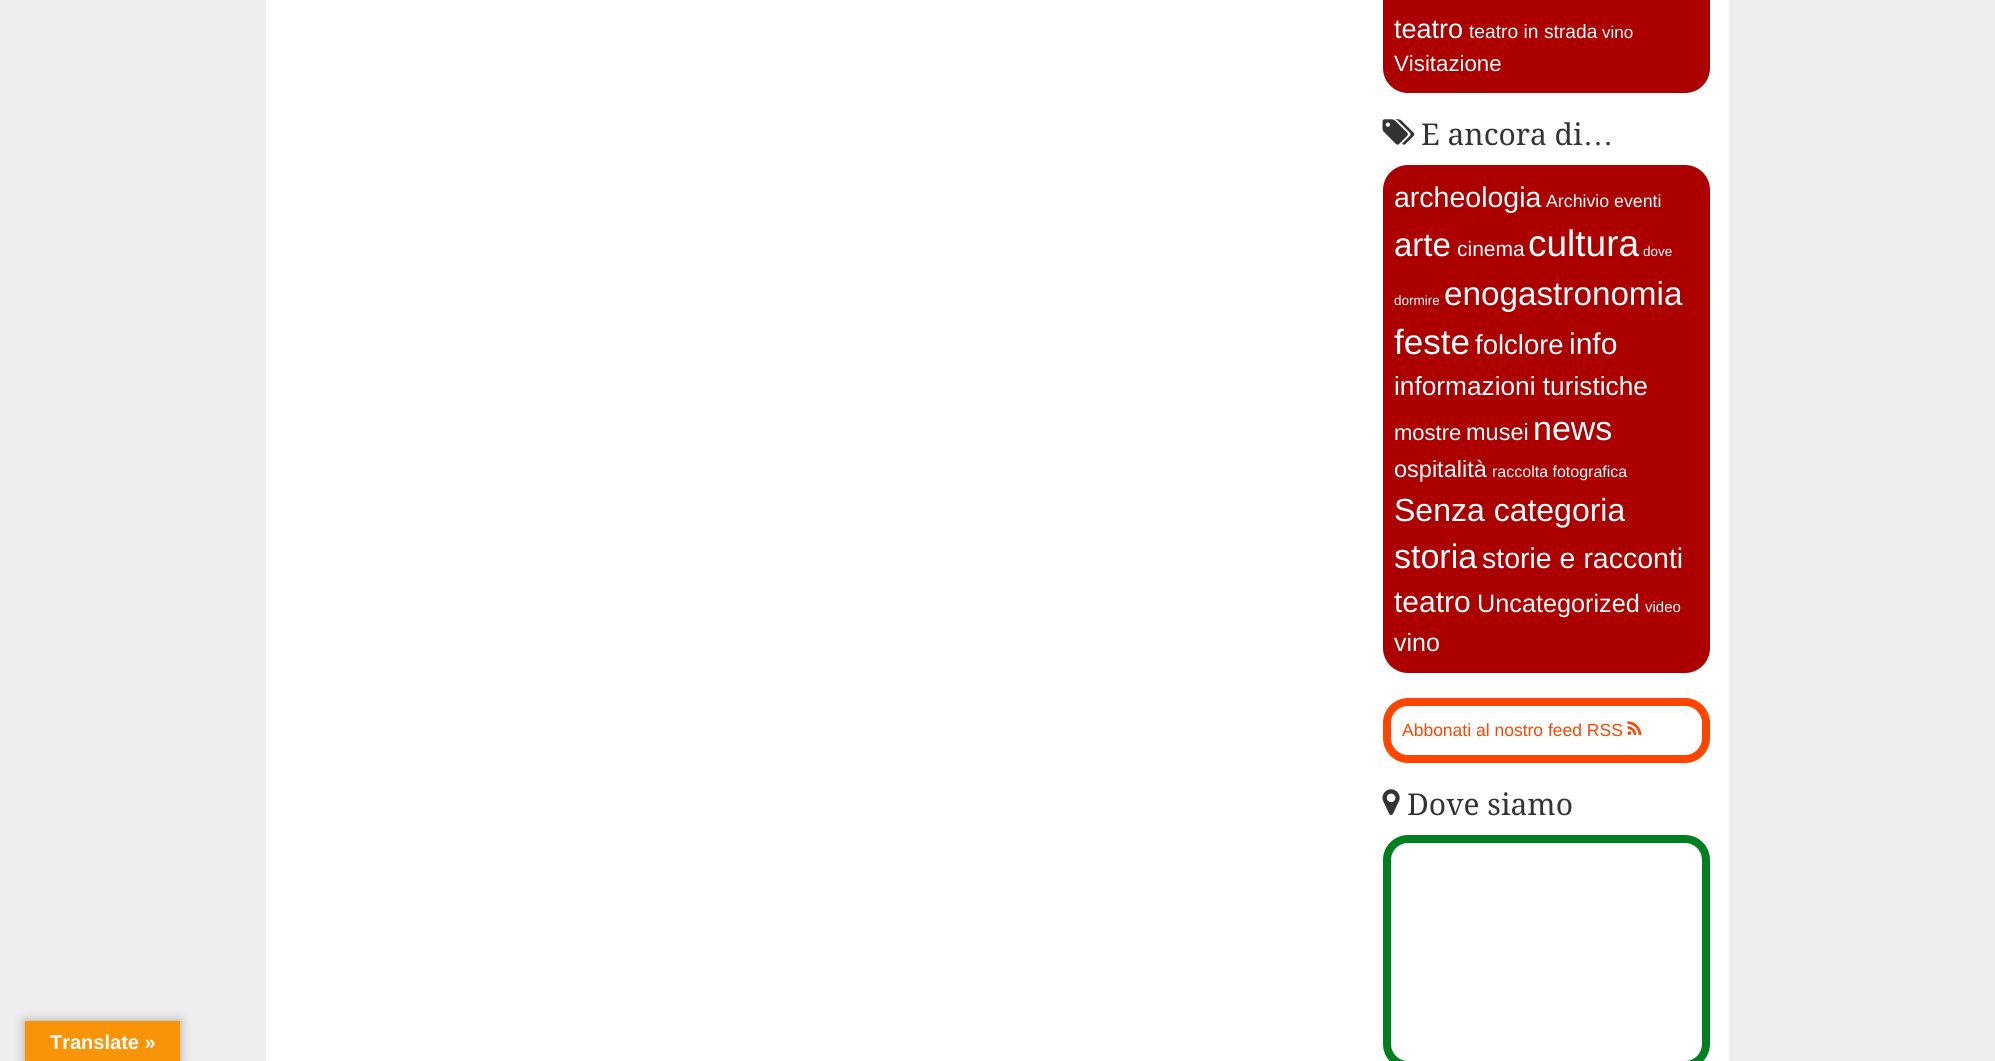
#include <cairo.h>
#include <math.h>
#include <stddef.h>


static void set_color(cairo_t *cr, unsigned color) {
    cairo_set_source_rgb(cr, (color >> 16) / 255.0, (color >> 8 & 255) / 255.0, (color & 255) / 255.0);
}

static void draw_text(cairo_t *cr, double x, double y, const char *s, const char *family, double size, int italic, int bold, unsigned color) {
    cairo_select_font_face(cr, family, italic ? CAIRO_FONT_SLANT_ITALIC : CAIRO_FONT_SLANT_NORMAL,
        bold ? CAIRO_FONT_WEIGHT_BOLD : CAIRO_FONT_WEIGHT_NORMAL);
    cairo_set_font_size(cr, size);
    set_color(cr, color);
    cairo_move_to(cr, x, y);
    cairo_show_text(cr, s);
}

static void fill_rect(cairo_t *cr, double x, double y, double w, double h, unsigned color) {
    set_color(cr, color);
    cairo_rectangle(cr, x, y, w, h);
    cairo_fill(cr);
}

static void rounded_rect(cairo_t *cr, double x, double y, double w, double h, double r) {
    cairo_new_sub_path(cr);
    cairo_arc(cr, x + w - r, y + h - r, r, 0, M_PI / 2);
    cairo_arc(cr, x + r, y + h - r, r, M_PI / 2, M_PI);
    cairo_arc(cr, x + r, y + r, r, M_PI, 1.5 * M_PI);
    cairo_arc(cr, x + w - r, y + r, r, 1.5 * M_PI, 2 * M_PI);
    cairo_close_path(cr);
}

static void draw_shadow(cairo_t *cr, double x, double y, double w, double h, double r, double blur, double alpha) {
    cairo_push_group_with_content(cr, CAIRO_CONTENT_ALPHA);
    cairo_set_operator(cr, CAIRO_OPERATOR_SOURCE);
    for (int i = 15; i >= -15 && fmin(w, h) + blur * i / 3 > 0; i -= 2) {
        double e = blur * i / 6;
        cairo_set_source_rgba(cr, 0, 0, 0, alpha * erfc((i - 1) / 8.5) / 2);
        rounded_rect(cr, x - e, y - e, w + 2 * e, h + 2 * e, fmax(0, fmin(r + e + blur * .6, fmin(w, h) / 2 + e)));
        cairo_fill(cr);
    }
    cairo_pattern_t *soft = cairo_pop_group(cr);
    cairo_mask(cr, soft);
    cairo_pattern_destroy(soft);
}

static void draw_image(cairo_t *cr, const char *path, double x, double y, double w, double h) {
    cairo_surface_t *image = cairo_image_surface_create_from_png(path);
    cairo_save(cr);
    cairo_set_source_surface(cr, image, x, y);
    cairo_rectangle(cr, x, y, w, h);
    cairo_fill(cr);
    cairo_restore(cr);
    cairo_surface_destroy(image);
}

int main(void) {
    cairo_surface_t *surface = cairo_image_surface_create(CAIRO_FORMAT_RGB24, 1995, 1061);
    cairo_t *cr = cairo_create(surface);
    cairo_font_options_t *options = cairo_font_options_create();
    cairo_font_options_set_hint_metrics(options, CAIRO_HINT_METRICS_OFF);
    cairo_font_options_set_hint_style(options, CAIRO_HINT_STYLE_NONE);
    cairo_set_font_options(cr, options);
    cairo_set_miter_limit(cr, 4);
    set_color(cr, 0xEEEEEE);
    cairo_paint(cr);
    fill_rect(cr, 266, 0, 1463, 1061, 0xFFFFFF);
    set_color(cr, 0xAC0000);
    rounded_rect(cr, 1383, -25, 327, 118, 25);
    cairo_fill(cr);
    draw_text(cr, 1394, 38, "teatro", "Liberation Sans", 27, 0, 0, 0xFFFFFF);
    draw_text(cr, 1469, 38, "teatro in strada", "Liberation Sans", 19.25, 0, 0, 0xFFFFFF);
    draw_text(cr, 1602, 38, "vino", "Liberation Sans", 17, 0, 0, 0xFFFFFF);
    draw_text(cr, 1394, 71, "Visitazione", "Liberation Sans", 22.25, 0, 0, 0xFFFFFF);
    draw_image(cr, "assets/img1.png", 1382, 119, 33, 26);
    draw_text(cr, 1421, 145, "E ancora di", "Droid Serif", 30, 0, 0, 0x333333);
    draw_text(cr, 1583, 145, "…", "Liberation Serif", 30, 0, 0, 0x333333);
    set_color(cr, 0xAC0000);
    rounded_rect(cr, 1383, 165, 327, 508, 25);
    cairo_fill(cr);
    draw_text(cr, 1394, 207, "archeologia", "Liberation Sans", 28.5, 0, 0, 0xFFFFFF);
    draw_text(cr, 1546, 207, "Archivio eventi", "Liberation Sans", 17.75, 0, 0, 0xFFFFFF);
    draw_text(cr, 1394, 256, "arte", "Liberation Sans", 33, 0, 0, 0xFFFFFF);
    draw_text(cr, 1457, 256, "cinema", "Liberation Sans", 21, 0, 0, 0xFFFFFF);
    draw_text(cr, 1528, 256, "cultura", "Liberation Sans", 37, 0, 0, 0xFFFFFF);
    draw_text(cr, 1643, 256, "dove", "Liberation Sans", 13.5, 0, 0, 0xFFFFFF);
    draw_text(cr, 1394, 305, "dormire", "Liberation Sans", 13.5, 0, 0, 0xFFFFFF);
    draw_text(cr, 1444, 305, "enogastronomia", "Liberation Sans", 33.25, 0, 0, 0xFFFFFF);
    draw_text(cr, 1394, 354, "feste", "Liberation Sans", 35, 0, 0, 0xFFFFFF);
    draw_text(cr, 1475, 354, "folclore", "Liberation Sans", 27.5, 0, 0, 0xFFFFFF);
    draw_text(cr, 1569, 354, "info", "Liberation Sans", 30, 0, 0, 0xFFFFFF);
    draw_text(cr, 1394, 395, "informazioni turistiche", "Liberation Sans", 26.25, 0, 0, 0xFFFFFF);
    draw_text(cr, 1394, 440, "mostre", "Liberation Sans", 22, 0, 0, 0xFFFFFF);
    draw_text(cr, 1466, 440, "musei", "Liberation Sans", 23.5, 0, 0, 0xFFFFFF);
    draw_text(cr, 1533, 440, "news", "Liberation Sans", 34, 0, 0, 0xFFFFFF);
    draw_text(cr, 1394, 477, "ospitalità", "Liberation Sans", 23.5, 0, 0, 0xFFFFFF);
    draw_text(cr, 1492, 477, "raccolta fotografica", "Liberation Sans", 16, 0, 0, 0xFFFFFF);
    draw_text(cr, 1394, 521, "Senza categoria", "Liberation Sans", 32, 0, 0, 0xFFFFFF);
    draw_text(cr, 1394, 568, "storia", "Liberation Sans", 34, 0, 0, 0xFFFFFF);
    draw_text(cr, 1482, 568, "storie e racconti", "Liberation Sans", 28.5, 0, 0, 0xFFFFFF);
    draw_text(cr, 1394, 612, "teatro", "Liberation Sans", 30, 0, 0, 0xFFFFFF);
    draw_text(cr, 1477, 612, "Uncategorized", "Liberation Sans", 25.25, 0, 0, 0xFFFFFF);
    draw_text(cr, 1645, 612, "video", "Liberation Sans", 15, 0, 0, 0xFFFFFF);
    draw_text(cr, 1394, 651, "vino", "Liberation Sans", 25, 0, 0, 0xFFFFFF);
    rounded_rect(cr, 1387, 702, 319, 57, 21);
    set_color(cr, 0xFF4500);
    cairo_set_line_width(cr, 8);
    cairo_stroke(cr);
    draw_text(cr, 1402, 736, "Abbonati al nostro feed RSS", "Liberation Sans", 17.5, 0, 0, 0xFF4500);
    draw_image(cr, "assets/img2.png", 1627, 721, 15, 14);
    draw_image(cr, "assets/img3.png", 1382, 789, 18, 26);
    draw_text(cr, 1407, 815, "Dove siamo", "Droid Serif", 30, 0, 0, 0x333333);
    rounded_rect(cr, 1387, 839, 319, 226, 21);
    set_color(cr, 0x007F20);
    cairo_stroke(cr);
    set_color(cr, 0x000000);
    draw_shadow(cr, 25, 1021, 155, 40, 0, 5.5, 0.3);
    fill_rect(cr, 25, 1021, 155, 40, 0xF89406);
    draw_text(cr, 50, 1049, "Translate »", "Liberation Sans", 20, 0, 1, 0xFFFFFF);
    cairo_surface_write_to_png(surface, "output.png");
    cairo_font_options_destroy(options);
    cairo_destroy(cr);
    cairo_surface_destroy(surface);
    return 0;
}
